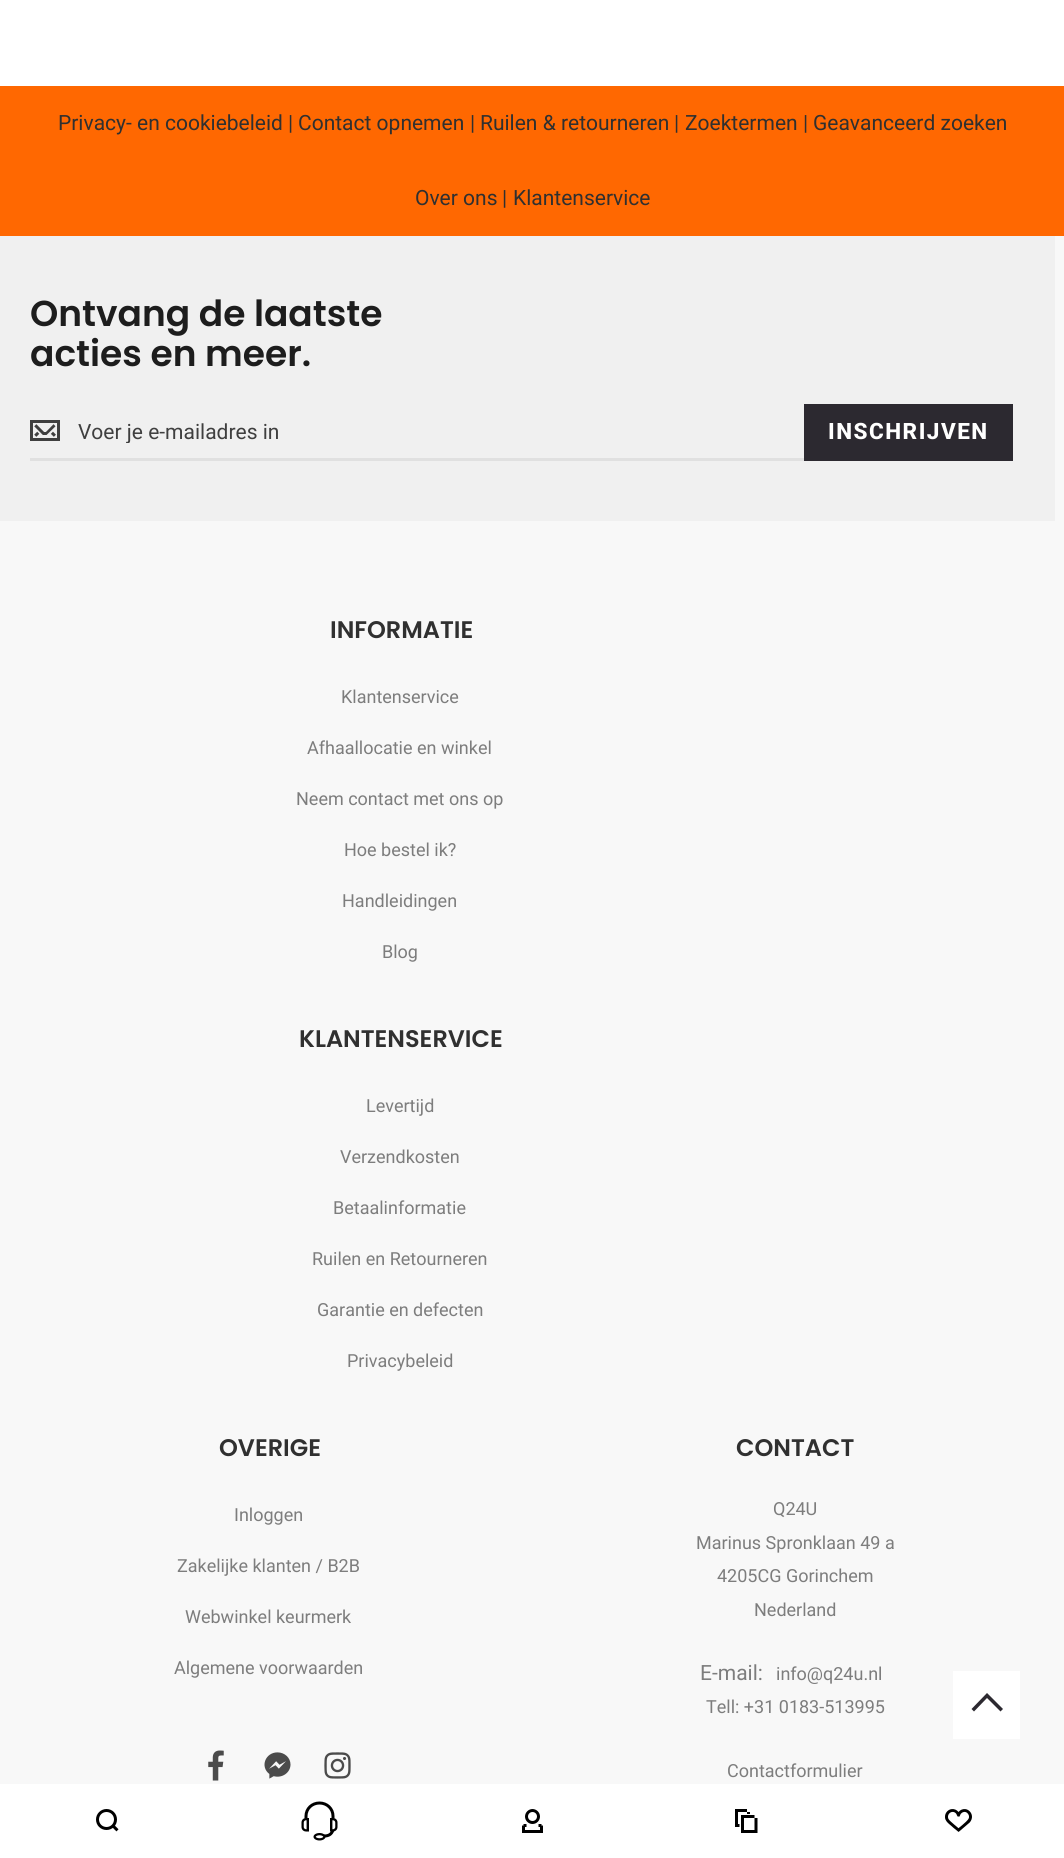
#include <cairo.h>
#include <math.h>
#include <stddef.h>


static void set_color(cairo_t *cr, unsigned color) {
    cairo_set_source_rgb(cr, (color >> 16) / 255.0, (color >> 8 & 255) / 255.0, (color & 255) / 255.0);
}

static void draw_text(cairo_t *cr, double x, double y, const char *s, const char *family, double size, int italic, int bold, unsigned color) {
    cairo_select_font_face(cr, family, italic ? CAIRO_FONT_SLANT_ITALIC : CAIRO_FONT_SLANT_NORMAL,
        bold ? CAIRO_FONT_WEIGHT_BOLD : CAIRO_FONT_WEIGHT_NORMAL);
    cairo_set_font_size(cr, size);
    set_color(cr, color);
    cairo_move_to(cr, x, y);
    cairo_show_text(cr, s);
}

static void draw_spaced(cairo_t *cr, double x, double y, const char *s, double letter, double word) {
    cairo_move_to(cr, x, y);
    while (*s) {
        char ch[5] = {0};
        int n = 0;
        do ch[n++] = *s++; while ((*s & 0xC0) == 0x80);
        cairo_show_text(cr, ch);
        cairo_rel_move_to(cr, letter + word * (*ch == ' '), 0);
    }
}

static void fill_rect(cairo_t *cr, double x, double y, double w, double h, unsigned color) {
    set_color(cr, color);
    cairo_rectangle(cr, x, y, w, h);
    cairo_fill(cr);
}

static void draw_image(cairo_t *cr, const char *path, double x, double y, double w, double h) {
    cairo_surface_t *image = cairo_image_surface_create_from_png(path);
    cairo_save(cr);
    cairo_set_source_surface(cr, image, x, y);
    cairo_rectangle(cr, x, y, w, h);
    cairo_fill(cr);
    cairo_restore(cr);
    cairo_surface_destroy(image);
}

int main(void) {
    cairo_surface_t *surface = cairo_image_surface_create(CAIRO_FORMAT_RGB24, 1064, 1858);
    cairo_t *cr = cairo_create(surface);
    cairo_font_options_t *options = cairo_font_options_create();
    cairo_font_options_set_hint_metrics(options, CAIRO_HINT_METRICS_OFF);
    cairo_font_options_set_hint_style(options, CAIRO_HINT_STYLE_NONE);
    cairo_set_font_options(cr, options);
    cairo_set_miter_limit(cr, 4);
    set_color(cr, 0xFFFFFF);
    cairo_paint(cr);
    fill_rect(cr, 0, 86, 1064, 150, 0xFF6801);
    draw_text(cr, 58, 130, "Privacy- en cookiebeleid", "Roboto", 21, 0, 0, 0x303030);
    draw_text(cr, 288, 130, "|", "Roboto", 21, 0, 0, 0x303030);
    draw_text(cr, 298, 130, "Contact opnemen", "Roboto", 21, 0, 0, 0x303030);
    draw_text(cr, 470, 130, "|", "Roboto", 21, 0, 0, 0x303030);
    draw_text(cr, 480, 130, "Ruilen & retourneren", "Roboto", 21, 0, 0, 0x303030);
    draw_text(cr, 674, 130, "|", "Roboto", 21, 0, 0, 0x303030);
    draw_text(cr, 685, 130, "Zoektermen", "Roboto", 21, 0, 0, 0x303030);
    draw_text(cr, 803, 130, "|", "Roboto", 21, 0, 0, 0x303030);
    draw_text(cr, 813, 130, "Geavanceerd zoeken", "Roboto", 21, 0, 0, 0x303030);
    draw_text(cr, 415, 205, "Over ons", "Roboto", 21, 0, 0, 0x303030);
    draw_text(cr, 502, 205, "|", "Roboto", 21, 0, 0, 0x303030);
    draw_text(cr, 513, 205, "Klantenservice", "Roboto", 21, 0, 0, 0x303030);
    fill_rect(cr, 0, 236, 1064, 1548, 0xF8F8F8);
    fill_rect(cr, 0, 236, 1055, 285, 0xF0F0F0);
    draw_text(cr, 30, 326, "Ontvang de laatste", "Poppins SemiBold", 36, 0, 0, 0x1D1D1D);
    draw_text(cr, 30, 366, "acties en meer.", "Poppins SemiBold", 36, 0, 0, 0x1D1D1D);
    draw_image(cr, "assets/img1.png", 30, 420, 30, 21);
    fill_rect(cr, 30, 458, 774, 3, 0xE0E0E0);
    cairo_save(cr);
    cairo_rectangle(cr, 78, 419, 726, 24);
    cairo_clip(cr);
    draw_text(cr, 78, 439, "Voer je e-mailadres in", "Roboto", 21, 0, 0, 0x3F3F3F);
    cairo_restore(cr);
    fill_rect(cr, 804, 404, 209, 57, 0x2C2930);
    cairo_select_font_face(cr, "Roboto ExtraBold", CAIRO_FONT_SLANT_NORMAL, CAIRO_FONT_WEIGHT_NORMAL);
    cairo_set_font_size(cr, 22.5);
    set_color(cr, 0xFFFFFF);
    draw_spaced(cr, 828, 439, "INSCHRIJVEN", 1.5, 0);
    draw_text(cr, 330, 638, "INFORMATIE", "Poppins SemiBold", 24, 0, 0, 0x303030);
    draw_text(cr, 341, 703, "Klantenservice", "Roboto", 18, 0, 0, 0x7D7D7D);
    draw_text(cr, 307, 754, "Afhaallocatie en winkel", "Roboto", 18, 0, 0, 0x7D7D7D);
    draw_text(cr, 296, 805, "Neem contact met ons op", "Roboto", 18, 0, 0, 0x7D7D7D);
    draw_text(cr, 344, 856, "Hoe bestel ik?", "Roboto", 18, 0, 0, 0x7D7D7D);
    draw_text(cr, 342, 907, "Handleidingen", "Roboto", 18, 0, 0, 0x7D7D7D);
    draw_text(cr, 382, 958, "Blog", "Roboto", 18, 0, 0, 0x7D7D7D);
    draw_text(cr, 299, 1047, "KLANTENSERVICE", "Poppins SemiBold", 24, 0, 0, 0x303030);
    draw_text(cr, 366, 1112, "Levertijd", "Roboto", 18, 0, 0, 0x7D7D7D);
    draw_text(cr, 340, 1163, "Verzendkosten", "Roboto", 18, 0, 0, 0x7D7D7D);
    draw_text(cr, 333, 1214, "Betaalinformatie", "Roboto", 18, 0, 0, 0x7D7D7D);
    draw_text(cr, 312, 1265, "Ruilen en Retourneren", "Roboto", 18, 0, 0, 0x7D7D7D);
    draw_text(cr, 317, 1316, "Garantie en defecten", "Roboto", 18, 0, 0, 0x7D7D7D);
    draw_text(cr, 347, 1367, "Privacybeleid", "Roboto", 18, 0, 0, 0x7D7D7D);
    draw_text(cr, 219, 1456, "OVERIGE", "Poppins SemiBold", 24, 0, 0, 0x303030);
    draw_text(cr, 234, 1521, "Inloggen", "Roboto", 18, 0, 0, 0x7D7D7D);
    draw_text(cr, 177, 1572, "Zakelijke klanten / B2B", "Roboto", 18, 0, 0, 0x7D7D7D);
    draw_text(cr, 185, 1623, "Webwinkel keurmerk", "Roboto", 18, 0, 0, 0x7D7D7D);
    draw_text(cr, 174, 1674, "Algemene voorwaarden", "Roboto", 18, 0, 0, 0x7D7D7D);
    draw_image(cr, "assets/img2.png", 208, 1750, 16, 31);
    draw_image(cr, "assets/img3.png", 264, 1752, 27, 27);
    draw_image(cr, "assets/img4.png", 324, 1752, 27, 27);
    draw_text(cr, 736, 1456, "CONTACT", "Poppins SemiBold", 24, 0, 0, 0x303030);
    draw_text(cr, 773, 1515, "Q24U", "Roboto", 18, 0, 0, 0x7D7D7D);
    draw_text(cr, 696, 1549, "Marinus Spronklaan 49 a", "Roboto", 18, 0, 0, 0x7D7D7D);
    draw_text(cr, 717, 1582, "4205CG Gorinchem", "Roboto", 18, 0, 0, 0x7D7D7D);
    draw_text(cr, 754, 1616, "Nederland", "Roboto", 18, 0, 0, 0x7D7D7D);
    draw_text(cr, 700, 1680, "E-mail:", "Roboto", 21, 0, 0, 0x7D7D7D);
    draw_text(cr, 776, 1680, "info@q24u.nl", "Roboto", 18, 0, 0, 0x7D7D7D);
    draw_text(cr, 706, 1713, "Tell: +31 0183-513995", "Roboto", 18, 0, 0, 0x7D7D7D);
    draw_text(cr, 727, 1777, "Contactformulier", "Roboto", 18, 0, 0, 0x7D7D7D);
    fill_rect(cr, 953, 1671, 67, 68, 0xFFFFFF);
    set_color(cr, 0x2C2930);
    cairo_new_path(cr);
    cairo_move_to(cr, 987, 1693);
    cairo_line_to(cr, 971.5, 1709);
    cairo_line_to(cr, 974, 1711.5);
    cairo_line_to(cr, 987, 1698);
    cairo_line_to(cr, 1000.5, 1711.5);
    cairo_line_to(cr, 1003, 1709);
    cairo_close_path(cr);
    cairo_fill(cr);
    draw_image(cr, "assets/img5.png", 96, 1809, 23, 23);
    draw_image(cr, "assets/img6.png", 301, 1801, 37, 40);
    draw_image(cr, "assets/img7.png", 522, 1809, 21, 24);
    draw_image(cr, "assets/img8.png", 735, 1809, 23, 24);
    draw_image(cr, "assets/img9.png", 945, 1809, 27, 23);
    cairo_surface_write_to_png(surface, "output.png");
    cairo_font_options_destroy(options);
    cairo_destroy(cr);
    cairo_surface_destroy(surface);
    return 0;
}
